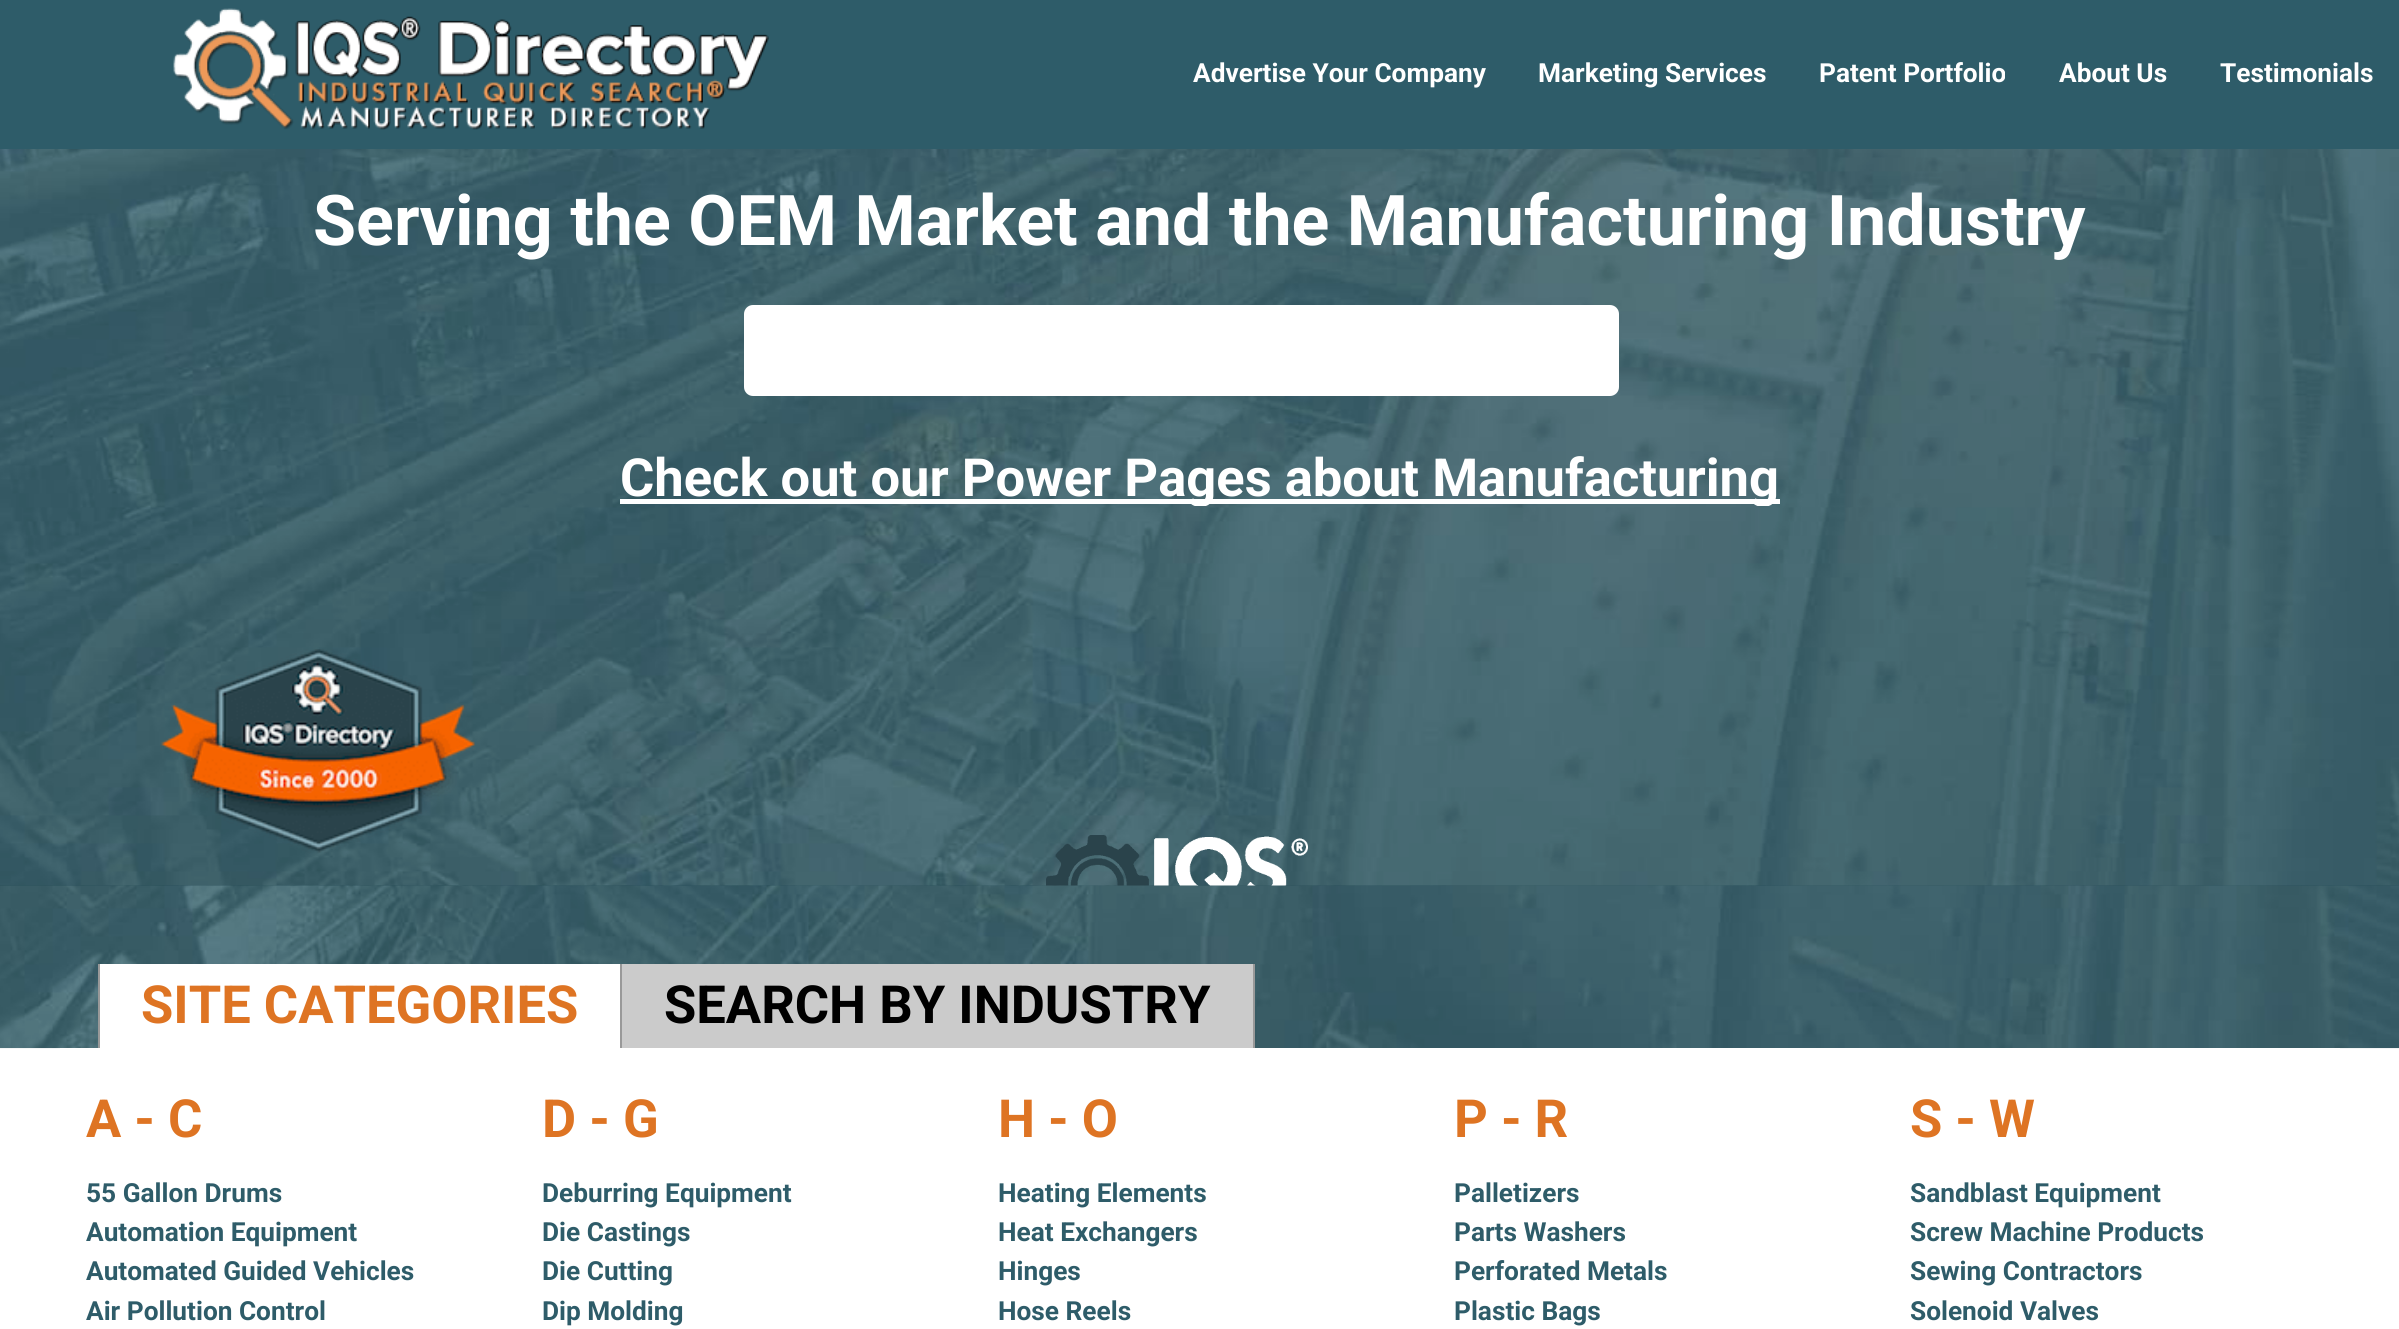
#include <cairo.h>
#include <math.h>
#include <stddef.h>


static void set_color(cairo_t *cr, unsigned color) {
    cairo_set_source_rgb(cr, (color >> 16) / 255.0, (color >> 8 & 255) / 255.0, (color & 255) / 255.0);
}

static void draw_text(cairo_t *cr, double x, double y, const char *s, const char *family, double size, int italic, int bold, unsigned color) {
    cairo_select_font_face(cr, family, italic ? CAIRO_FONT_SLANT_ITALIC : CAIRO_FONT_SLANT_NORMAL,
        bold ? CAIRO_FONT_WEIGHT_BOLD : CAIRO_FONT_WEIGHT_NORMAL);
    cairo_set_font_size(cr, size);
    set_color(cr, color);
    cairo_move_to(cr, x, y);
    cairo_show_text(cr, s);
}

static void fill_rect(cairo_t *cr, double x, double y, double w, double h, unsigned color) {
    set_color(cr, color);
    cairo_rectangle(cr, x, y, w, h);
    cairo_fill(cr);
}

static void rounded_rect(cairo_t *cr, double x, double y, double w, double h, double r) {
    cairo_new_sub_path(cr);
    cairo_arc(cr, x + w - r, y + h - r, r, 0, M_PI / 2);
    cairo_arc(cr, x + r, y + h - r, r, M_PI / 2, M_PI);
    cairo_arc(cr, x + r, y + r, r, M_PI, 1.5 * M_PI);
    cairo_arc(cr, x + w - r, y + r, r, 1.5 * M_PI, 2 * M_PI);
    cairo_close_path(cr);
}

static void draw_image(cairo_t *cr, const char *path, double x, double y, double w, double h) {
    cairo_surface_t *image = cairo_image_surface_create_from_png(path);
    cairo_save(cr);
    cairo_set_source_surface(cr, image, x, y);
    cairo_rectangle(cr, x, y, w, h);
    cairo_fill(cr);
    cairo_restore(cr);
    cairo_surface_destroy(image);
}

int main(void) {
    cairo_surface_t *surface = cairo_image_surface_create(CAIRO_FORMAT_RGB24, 2399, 1329);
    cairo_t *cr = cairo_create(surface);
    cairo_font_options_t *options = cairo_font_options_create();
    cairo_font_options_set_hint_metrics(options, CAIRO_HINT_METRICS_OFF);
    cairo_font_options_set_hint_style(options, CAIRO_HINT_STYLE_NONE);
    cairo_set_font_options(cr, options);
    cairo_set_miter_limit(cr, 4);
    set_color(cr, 0xFFFFFF);
    cairo_paint(cr);
    fill_rect(cr, 0, 0, 2399, 149, 0x2E5C69);
    draw_image(cr, "assets/img1.png", 173, 8, 596, 122);
    draw_text(cr, 1193, 82, "Advertise Your Company", "Roboto", 26.25, 0, 1, 0xFFFFFF);
    draw_text(cr, 1538, 82, "Marketing Services", "Roboto", 26.25, 0, 1, 0xFFFFFF);
    draw_text(cr, 1819, 82, "Patent Portfolio", "Roboto", 26.25, 0, 1, 0xFFFFFF);
    draw_text(cr, 2059, 82, "About Us", "Roboto", 26.25, 0, 1, 0xFFFFFF);
    draw_text(cr, 2220, 82, "Testimonials", "Roboto", 26.25, 0, 1, 0xFFFFFF);
    draw_image(cr, "assets/img2.png", 0, 149, 2399, 737);
    draw_text(cr, 313, 245, "Serving the OEM Market and the Manufacturing Industry", "Roboto", 70, 0, 1, 0xFFFFFF);
    rounded_rect(cr, 744, 305, 875, 91, 9);
    cairo_fill(cr);
    fill_rect(cr, 620, 499, 1160, 5, 0xFFFFFF);
    cairo_save(cr);
    cairo_rectangle(cr, 0, 431, 2399, 75);
    cairo_clip(cr);
    draw_text(cr, 620, 496, "Check out our Power Pages about Manufacturing", "Roboto", 52.5, 0, 1, 0xFFFFFF);
    cairo_restore(cr);
    draw_image(cr, "assets/img3.png", 160, 649, 315, 204);
    draw_image(cr, "assets/img5.png", 0, 885, 2399, 164);
    draw_image(cr, "assets/img4.png", 1046, 835, 262, 51);
    fill_rect(cr, 100, 964, 520, 84, 0xFFFFFF);
    fill_rect(cr, 620, 964, 2, 84, 0x999999);
    fill_rect(cr, 98, 964, 2, 84, 0x999999);
    draw_text(cr, 141, 1023, "SITE CATEGORIES", "Roboto", 52.5, 0, 1, 0xDE7423);
    fill_rect(cr, 622, 964, 631, 84, 0xCBCBCB);
    fill_rect(cr, 1253, 964, 2, 84, 0x999999);
    draw_text(cr, 664, 1023, "SEARCH BY INDUSTRY", "Roboto", 52.5, 0, 1, 0x000000);
    fill_rect(cr, 60, 1048, 2280, 1, 0xFFFFFF);
    draw_text(cr, 86, 1137, "A - C", "Roboto", 52.5, 0, 1, 0xDE7423);
    draw_text(cr, 86, 1202, "55 Gallon Drums", "Roboto", 26.25, 0, 1, 0x2E5C69);
    draw_text(cr, 86, 1241, "Automation Equipment", "Roboto", 26.25, 0, 1, 0x2E5C69);
    draw_text(cr, 86, 1280, "Automated Guided Vehicles", "Roboto", 26.25, 0, 1, 0x2E5C69);
    draw_text(cr, 86, 1320, "Air Pollution Control", "Roboto", 26.25, 0, 1, 0x2E5C69);
    draw_text(cr, 542, 1137, "D - G", "Roboto", 52.5, 0, 1, 0xDE7423);
    draw_text(cr, 542, 1202, "Deburring Equipment", "Roboto", 26.25, 0, 1, 0x2E5C69);
    draw_text(cr, 542, 1241, "Die Castings", "Roboto", 26.25, 0, 1, 0x2E5C69);
    draw_text(cr, 542, 1280, "Die Cutting", "Roboto", 26.25, 0, 1, 0x2E5C69);
    draw_text(cr, 542, 1320, "Dip Molding", "Roboto", 26.25, 0, 1, 0x2E5C69);
    draw_text(cr, 998, 1137, "H - O", "Roboto", 52.5, 0, 1, 0xDE7423);
    draw_text(cr, 998, 1202, "Heating Elements", "Roboto", 26.25, 0, 1, 0x2E5C69);
    draw_text(cr, 998, 1241, "Heat Exchangers", "Roboto", 26.25, 0, 1, 0x2E5C69);
    draw_text(cr, 998, 1280, "Hinges", "Roboto", 26.25, 0, 1, 0x2E5C69);
    draw_text(cr, 998, 1320, "Hose Reels", "Roboto", 26.25, 0, 1, 0x2E5C69);
    draw_text(cr, 1454, 1137, "P - R", "Roboto", 52.5, 0, 1, 0xDE7423);
    draw_text(cr, 1454, 1202, "Palletizers", "Roboto", 26.25, 0, 1, 0x2E5C69);
    draw_text(cr, 1454, 1241, "Parts Washers", "Roboto", 26.25, 0, 1, 0x2E5C69);
    draw_text(cr, 1454, 1280, "Perforated Metals", "Roboto", 26.25, 0, 1, 0x2E5C69);
    draw_text(cr, 1454, 1320, "Plastic Bags", "Roboto", 26.25, 0, 1, 0x2E5C69);
    draw_text(cr, 1910, 1137, "S - W", "Roboto", 52.5, 0, 1, 0xDE7423);
    draw_text(cr, 1910, 1202, "Sandblast Equipment", "Roboto", 26.25, 0, 1, 0x2E5C69);
    draw_text(cr, 1910, 1241, "Screw Machine Products", "Roboto", 26.25, 0, 1, 0x2E5C69);
    draw_text(cr, 1910, 1280, "Sewing Contractors", "Roboto", 26.25, 0, 1, 0x2E5C69);
    draw_text(cr, 1910, 1320, "Solenoid Valves", "Roboto", 26.25, 0, 1, 0x2E5C69);
    cairo_surface_write_to_png(surface, "output.png");
    cairo_font_options_destroy(options);
    cairo_destroy(cr);
    cairo_surface_destroy(surface);
    return 0;
}
